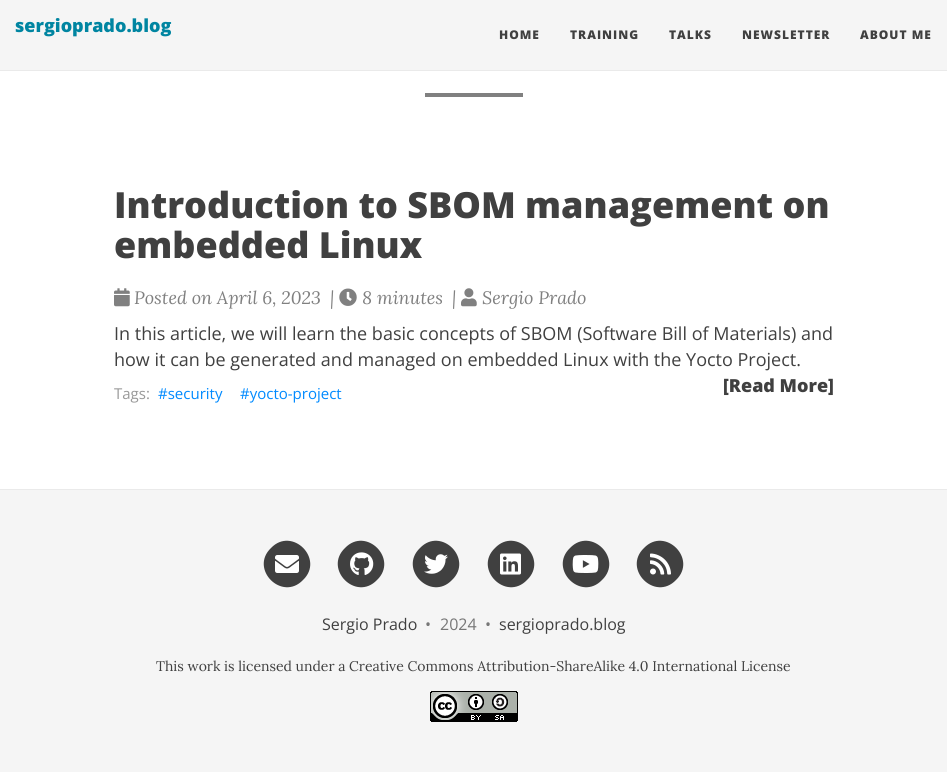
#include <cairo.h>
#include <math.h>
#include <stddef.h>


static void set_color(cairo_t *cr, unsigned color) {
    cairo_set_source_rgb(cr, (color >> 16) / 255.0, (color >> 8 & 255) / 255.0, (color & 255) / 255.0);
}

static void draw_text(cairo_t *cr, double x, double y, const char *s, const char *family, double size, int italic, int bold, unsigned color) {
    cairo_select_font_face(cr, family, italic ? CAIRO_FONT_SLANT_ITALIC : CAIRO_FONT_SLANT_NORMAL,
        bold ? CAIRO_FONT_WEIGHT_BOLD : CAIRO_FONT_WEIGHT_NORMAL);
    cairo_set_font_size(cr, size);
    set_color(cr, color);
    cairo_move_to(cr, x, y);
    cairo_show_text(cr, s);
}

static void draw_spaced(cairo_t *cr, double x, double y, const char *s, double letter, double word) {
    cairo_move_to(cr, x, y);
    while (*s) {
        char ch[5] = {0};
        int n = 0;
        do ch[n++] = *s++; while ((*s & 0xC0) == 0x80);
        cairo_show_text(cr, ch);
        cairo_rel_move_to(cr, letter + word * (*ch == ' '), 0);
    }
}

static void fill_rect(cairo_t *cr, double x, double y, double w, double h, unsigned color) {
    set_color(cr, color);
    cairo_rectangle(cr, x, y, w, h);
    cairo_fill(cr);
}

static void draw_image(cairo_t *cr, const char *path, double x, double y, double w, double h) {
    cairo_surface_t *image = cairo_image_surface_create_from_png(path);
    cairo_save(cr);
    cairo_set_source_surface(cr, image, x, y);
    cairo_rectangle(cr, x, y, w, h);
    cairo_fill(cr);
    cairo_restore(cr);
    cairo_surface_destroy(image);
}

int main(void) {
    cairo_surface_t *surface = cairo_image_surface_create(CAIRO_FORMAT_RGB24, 947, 772);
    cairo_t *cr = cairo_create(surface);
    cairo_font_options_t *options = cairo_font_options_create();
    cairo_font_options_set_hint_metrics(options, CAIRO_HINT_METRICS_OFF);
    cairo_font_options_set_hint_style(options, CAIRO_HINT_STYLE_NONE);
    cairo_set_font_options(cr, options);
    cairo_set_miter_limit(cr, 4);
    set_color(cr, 0xFFFFFF);
    cairo_paint(cr);
    fill_rect(cr, 0, 0, 947, 70, 0xF5F5F5);
    fill_rect(cr, 0, 70, 947, 1, 0xEAEAEA);
    draw_text(cr, 15, 32, "sergioprado.blog", "Open Sans ExtraBold", 18, 0, 0, 0x0085A1);
    cairo_set_font_size(cr, 12);
    set_color(cr, 0x404040);
    draw_spaced(cr, 499, 39, "HOME", 1, 0);
    draw_spaced(cr, 570, 39, "TRAINING", 1, 0);
    draw_spaced(cr, 669, 39, "TALKS", 1, 0);
    draw_spaced(cr, 742, 39, "NEWSLETTER", 1, 0);
    draw_spaced(cr, 860, 39, "ABOUT ME", 1, 0);
    fill_rect(cr, 425, 93, 98, 4, 0x808080);
    draw_text(cr, 114, 218, "Introduction to SBOM management on", "Open Sans ExtraBold", 36, 0, 0, 0x404040);
    draw_text(cr, 114, 258, "embedded Linux", "Open Sans ExtraBold", 36, 0, 0, 0x404040);
    draw_image(cr, "assets/img1.png", 114, 288, 16, 19);
    draw_text(cr, 134, 304, "Posted on April 6, 2023", "Lora", 18, 1, 0, 0x808080);
    draw_text(cr, 330, 304, "|", "Lora", 18, 1, 0, 0x808080);
    draw_image(cr, "assets/img2.png", 339, 288, 18, 18);
    draw_text(cr, 362, 304, "8 minutes", "Lora", 18, 1, 0, 0x808080);
    draw_text(cr, 452, 304, "|", "Lora", 18, 1, 0, 0x808080);
    draw_image(cr, "assets/img3.png", 461, 288, 16, 19);
    draw_text(cr, 482, 304, "Sergio Prado", "Lora", 18, 1, 0, 0x808080);
    draw_text(cr, 114, 340, "In this article, we will learn the basic concepts of SBOM (Software Bill of Materials) and", "Open Sans", 18, 0, 0, 0x404040);
    draw_text(cr, 114, 366, "how it can be generated and managed on embedded Linux with the Yocto Project.", "Open Sans", 18, 0, 0, 0x404040);
    draw_text(cr, 723, 392, "[Read More]", "Open Sans ExtraBold", 18, 0, 0, 0x404040);
    draw_text(cr, 114, 399, "Tags:", "Open Sans", 15, 0, 0, 0x999999);
    draw_text(cr, 158, 399, "#security", "Open Sans", 15, 0, 0, 0x008AFF);
    draw_text(cr, 240, 399, "#yocto-project", "Open Sans", 15, 0, 0, 0x008AFF);
    fill_rect(cr, 0, 490, 947, 282, 0xF5F5F5);
    fill_rect(cr, 0, 489, 947, 1, 0xEAEAEA);
    set_color(cr, 0x404040);
    cairo_new_path(cr);
    cairo_move_to(cr, 271, 548);
    cairo_curve_to(cr, 292, 526, 325, 559, 303, 580);
    cairo_curve_to(cr, 282, 602, 249, 569, 271, 548);
    cairo_close_path(cr);
    cairo_fill(cr);
    draw_image(cr, "assets/img4.png", 275, 555, 24, 18);
    cairo_new_path(cr);
    cairo_move_to(cr, 345, 548);
    cairo_curve_to(cr, 366, 526, 399, 559, 377, 580);
    cairo_curve_to(cr, 356, 602, 323, 569, 345, 548);
    cairo_close_path(cr);
    cairo_fill(cr);
    draw_image(cr, "assets/img5.png", 350, 552, 24, 23);
    cairo_new_path(cr);
    cairo_move_to(cr, 420, 548);
    cairo_curve_to(cr, 441, 526, 474, 559, 452, 580);
    cairo_curve_to(cr, 431, 602, 398, 569, 420, 548);
    cairo_close_path(cr);
    cairo_fill(cr);
    draw_image(cr, "assets/img6.png", 424, 554, 24, 20);
    cairo_new_path(cr);
    cairo_move_to(cr, 495, 548);
    cairo_curve_to(cr, 516, 526, 549, 559, 527, 580);
    cairo_curve_to(cr, 506, 602, 473, 569, 495, 548);
    cairo_close_path(cr);
    cairo_fill(cr);
    draw_image(cr, "assets/img7.png", 500, 553, 21, 22);
    cairo_new_path(cr);
    cairo_move_to(cr, 570, 548);
    cairo_curve_to(cr, 591, 526, 624, 559, 602, 580);
    cairo_curve_to(cr, 581, 602, 548, 569, 570, 548);
    cairo_close_path(cr);
    cairo_fill(cr);
    draw_image(cr, "assets/img8.png", 572, 555, 27, 18);
    cairo_new_path(cr);
    cairo_move_to(cr, 644, 548);
    cairo_curve_to(cr, 665, 526, 698, 559, 676, 580);
    cairo_curve_to(cr, 655, 602, 622, 569, 644, 548);
    cairo_close_path(cr);
    cairo_fill(cr);
    draw_image(cr, "assets/img9.png", 650, 553, 21, 22);
    draw_text(cr, 322, 630, "Sergio Prado", "Open Sans", 16, 0, 0, 0x404040);
    draw_text(cr, 425, 630, "•", "Open Sans", 16, 0, 0, 0x777777);
    draw_text(cr, 440, 630, "2024", "Open Sans", 16, 0, 0, 0x777777);
    draw_text(cr, 485, 630, "•", "Open Sans", 16, 0, 0, 0x777777);
    draw_text(cr, 499, 630, "sergioprado.blog", "Open Sans", 16, 0, 0, 0x404040);
    draw_text(cr, 156, 671, "This work is licensed under a Creative Commons Attribution-ShareAlike 4.0 International License", "Lora", 14, 0, 0, 0x404040);
    draw_image(cr, "assets/img10.png", 430, 691, 88, 31);
    cairo_surface_write_to_png(surface, "output.png");
    cairo_font_options_destroy(options);
    cairo_destroy(cr);
    cairo_surface_destroy(surface);
    return 0;
}
